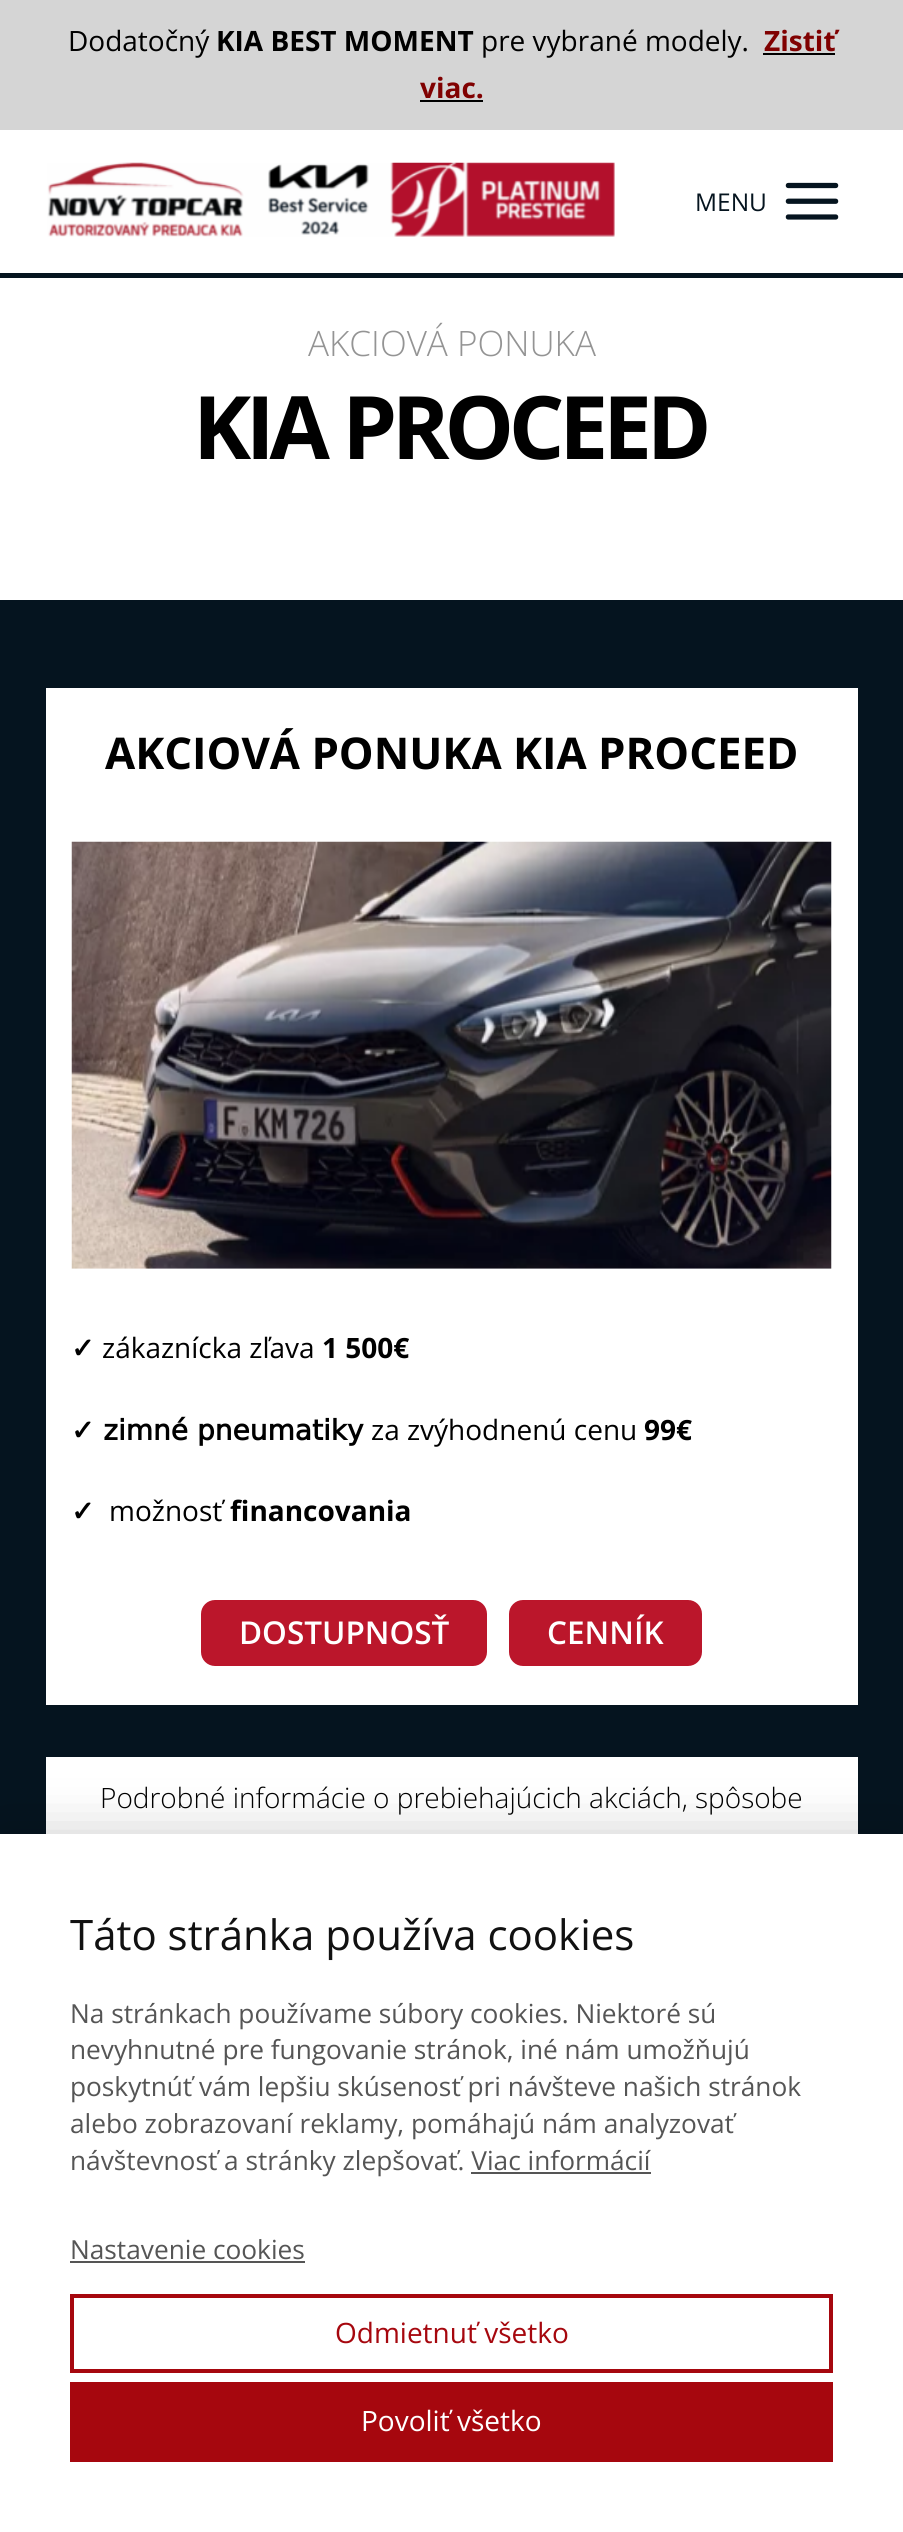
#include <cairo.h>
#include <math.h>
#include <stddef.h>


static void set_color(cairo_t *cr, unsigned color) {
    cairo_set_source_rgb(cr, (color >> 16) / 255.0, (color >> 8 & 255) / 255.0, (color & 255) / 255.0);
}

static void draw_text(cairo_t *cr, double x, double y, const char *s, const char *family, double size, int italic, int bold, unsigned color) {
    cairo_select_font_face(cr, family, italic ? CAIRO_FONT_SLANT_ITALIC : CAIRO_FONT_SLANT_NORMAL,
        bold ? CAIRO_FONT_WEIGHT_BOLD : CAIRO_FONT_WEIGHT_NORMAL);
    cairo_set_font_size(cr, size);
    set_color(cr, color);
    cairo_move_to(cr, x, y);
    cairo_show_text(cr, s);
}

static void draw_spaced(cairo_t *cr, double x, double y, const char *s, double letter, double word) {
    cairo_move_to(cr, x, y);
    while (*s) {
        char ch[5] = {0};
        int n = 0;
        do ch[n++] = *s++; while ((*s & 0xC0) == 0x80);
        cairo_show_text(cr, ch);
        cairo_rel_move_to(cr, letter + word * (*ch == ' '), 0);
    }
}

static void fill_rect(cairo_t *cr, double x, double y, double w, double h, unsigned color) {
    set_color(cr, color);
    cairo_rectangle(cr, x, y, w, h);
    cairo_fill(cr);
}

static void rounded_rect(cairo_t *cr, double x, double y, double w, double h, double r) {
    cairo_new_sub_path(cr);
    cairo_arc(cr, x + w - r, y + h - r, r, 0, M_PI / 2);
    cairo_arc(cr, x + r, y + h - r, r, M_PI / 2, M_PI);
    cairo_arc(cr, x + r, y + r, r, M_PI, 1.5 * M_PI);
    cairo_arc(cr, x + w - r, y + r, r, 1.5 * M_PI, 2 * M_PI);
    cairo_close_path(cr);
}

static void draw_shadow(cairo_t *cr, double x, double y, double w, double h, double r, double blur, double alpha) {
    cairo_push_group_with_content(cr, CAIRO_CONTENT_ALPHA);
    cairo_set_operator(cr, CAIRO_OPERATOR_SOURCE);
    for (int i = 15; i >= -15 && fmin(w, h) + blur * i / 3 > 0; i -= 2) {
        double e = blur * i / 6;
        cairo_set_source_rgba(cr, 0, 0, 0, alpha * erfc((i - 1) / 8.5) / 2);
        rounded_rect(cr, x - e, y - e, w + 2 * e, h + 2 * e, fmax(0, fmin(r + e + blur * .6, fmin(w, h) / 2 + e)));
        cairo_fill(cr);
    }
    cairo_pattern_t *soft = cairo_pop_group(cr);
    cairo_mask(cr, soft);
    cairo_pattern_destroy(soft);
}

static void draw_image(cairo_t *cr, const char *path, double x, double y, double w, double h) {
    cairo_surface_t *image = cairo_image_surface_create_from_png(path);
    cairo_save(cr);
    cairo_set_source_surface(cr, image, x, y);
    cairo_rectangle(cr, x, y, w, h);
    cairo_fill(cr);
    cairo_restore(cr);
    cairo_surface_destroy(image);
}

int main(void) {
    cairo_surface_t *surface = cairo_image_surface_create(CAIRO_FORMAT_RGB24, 903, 2532);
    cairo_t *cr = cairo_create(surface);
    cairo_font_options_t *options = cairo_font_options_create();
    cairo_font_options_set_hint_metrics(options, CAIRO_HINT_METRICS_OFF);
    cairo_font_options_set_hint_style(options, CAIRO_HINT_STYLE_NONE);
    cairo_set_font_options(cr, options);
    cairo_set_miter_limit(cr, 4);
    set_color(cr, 0xFFFFFF);
    cairo_paint(cr);
    fill_rect(cr, 0, 0, 903, 130, 0xD5D5D5);
    draw_text(cr, 68, 51, "Dodatočný", "Open Sans", 28, 0, 0, 0x000000);
    draw_text(cr, 216, 51, "KIA BEST MOMENT", "Open Sans", 28, 0, 1, 0x000000);
    draw_text(cr, 481, 51, "pre vybrané modely.", "Open Sans", 28, 0, 0, 0x000000);
    draw_text(cr, 764, 51, "Zistiť", "Open Sans", 28, 0, 1, 0x800101);
    fill_rect(cr, 763, 53, 72, 2, 0x000000);
    draw_text(cr, 420, 98, "viac.", "Open Sans", 28, 0, 1, 0x800101);
    fill_rect(cr, 420, 100, 63, 2, 0x000000);
    fill_rect(cr, 0, 273, 903, 5, 0x05141F);
    draw_image(cr, "assets/img1.png", 47, 162, 568, 75);
    draw_text(cr, 695, 211, "MENU", "Open Sans", 24.5, 0, 0, 0x05141F);
    draw_image(cr, "assets/img2.png", 785, 182, 54, 38);
    draw_text(cr, 308, 356, "AKCIOVÁ PONUKA", "Open Sans Light", 35, 0, 0, 0x949494);
    cairo_select_font_face(cr, "Open Sans", CAIRO_FONT_SLANT_NORMAL, CAIRO_FONT_WEIGHT_BOLD);
    cairo_set_font_size(cr, 87.5);
    set_color(cr, 0x000000);
    draw_spaced(cr, 193, 459, "KIA PROCEED", -5.25, 0);
    fill_rect(cr, 0, 600, 903, 1234, 0x05141F);
    fill_rect(cr, 46, 688, 812, 1017, 0xFFFFFF);
    draw_text(cr, 105, 769, "AKCIOVÁ PONUKA KIA PROCEED", "Open Sans", 43.75, 0, 1, 0x000000);
    draw_image(cr, "assets/img3.png", 71, 841, 761, 428);
    draw_text(cr, 71, 1358, "✓", "DejaVu Sans", 28, 0, 1, 0x000000);
    draw_text(cr, 102, 1358, "zákaznícka zľava", "Open Sans", 28, 0, 0, 0x000000);
    draw_text(cr, 322, 1358, "1 500€", "Open Sans", 28, 0, 1, 0x000000);
    draw_text(cr, 71, 1440, "✓ zimné pneumatiky", "DejaVu Sans", 28, 0, 1, 0x000000);
    draw_text(cr, 371, 1440, "za zvýhodnenú cenu", "Open Sans", 28, 0, 0, 0x000000);
    draw_text(cr, 644, 1440, "99€", "Open Sans", 28, 0, 1, 0x000000);
    draw_text(cr, 71, 1521, "✓", "DejaVu Sans", 28, 0, 1, 0x000000);
    draw_text(cr, 109, 1521, "možnosť", "Open Sans", 28, 0, 0, 0x000000);
    draw_text(cr, 230, 1521, "financovania", "Open Sans", 28, 0, 1, 0x000000);
    set_color(cr, 0xBB162B);
    rounded_rect(cr, 201, 1600, 286, 66, 14);
    cairo_fill(cr);
    draw_text(cr, 239, 1644, "DOSTUPNOSŤ", "Open Sans SemiBold", 31.5, 0, 0, 0xFFFFFF);
    set_color(cr, 0xBB162B);
    rounded_rect(cr, 509, 1600, 193, 66, 14);
    cairo_fill(cr);
    draw_text(cr, 547, 1644, "CENNÍK", "Open Sans SemiBold", 31.5, 0, 0, 0xFFFFFF);
    fill_rect(cr, 46, 1757, 812, 77, 0xFFFFFF);
    draw_text(cr, 100, 1808, "Podrobné informácie o prebiehajúcich akciách, spôsobe", "Open Sans Light", 28, 0, 0, 0x000000);
    set_color(cr, 0x000000);
    draw_shadow(cr, 0, 1834, 903, 698, 0, 26, 0.2);
    fill_rect(cr, 0, 1834, 903, 698, 0xFFFFFF);
    draw_text(cr, 70, 1950, "Táto stránka používa cookies", "Open Sans", 42, 0, 0, 0x111111);
    draw_text(cr, 70, 2023, "Na stránkach používame súbory cookies. Niektoré sú", "Open Sans", 26.25, 0, 0, 0x555555);
    draw_text(cr, 70, 2059, "nevyhnutné pre fungovanie stránok, iné nám umožňujú", "Open Sans", 26.25, 0, 0, 0x555555);
    draw_text(cr, 70, 2096, "poskytnúť vám lepšiu skúsenosť pri návšteve našich stránok", "Open Sans", 26.25, 0, 0, 0x555555);
    draw_text(cr, 70, 2133, "alebo zobrazovaní reklamy, pomáhajú nám analyzovať", "Open Sans", 26.25, 0, 0, 0x555555);
    draw_text(cr, 70, 2170, "návštevnosť a stránky zlepšovať. Viac informácií", "Open Sans", 26.25, 0, 0, 0x555555);
    fill_rect(cr, 471, 2172, 180, 2, 0x555555);
    draw_text(cr, 70, 2259, "Nastavenie cookies", "Open Sans", 26.25, 0, 0, 0x555555);
    fill_rect(cr, 70, 2261, 235, 2, 0x555555);
    cairo_rectangle(cr, 72, 2296, 759, 75);
    set_color(cr, 0xA6070E);
    cairo_set_line_width(cr, 4);
    cairo_stroke(cr);
    draw_text(cr, 335, 2343, "Odmietnuť všetko", "Open Sans", 28, 0, 0, 0xA6070E);
    fill_rect(cr, 70, 2382, 763, 80, 0xA6070E);
    draw_text(cr, 361, 2431, "Povoliť všetko", "Open Sans", 28, 0, 0, 0xFFFFFF);
    cairo_surface_write_to_png(surface, "output.png");
    cairo_font_options_destroy(options);
    cairo_destroy(cr);
    cairo_surface_destroy(surface);
    return 0;
}
